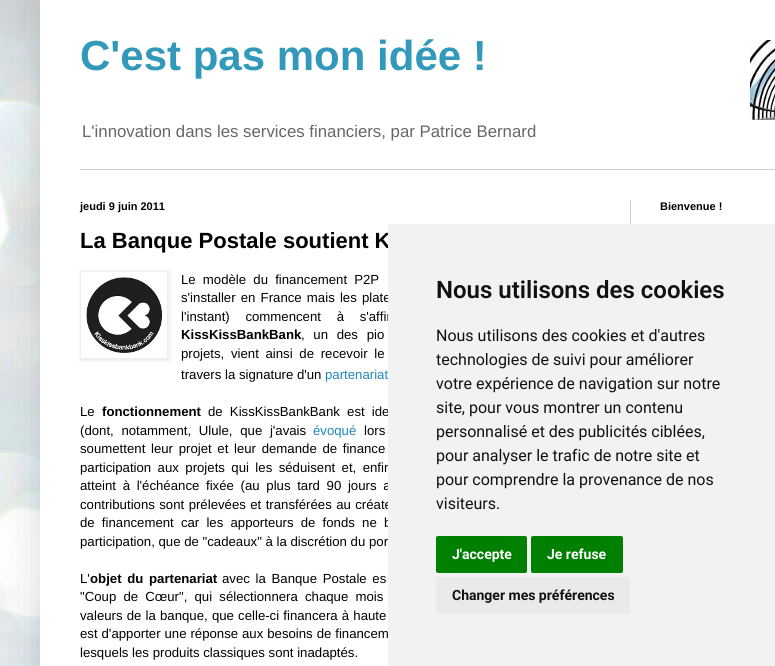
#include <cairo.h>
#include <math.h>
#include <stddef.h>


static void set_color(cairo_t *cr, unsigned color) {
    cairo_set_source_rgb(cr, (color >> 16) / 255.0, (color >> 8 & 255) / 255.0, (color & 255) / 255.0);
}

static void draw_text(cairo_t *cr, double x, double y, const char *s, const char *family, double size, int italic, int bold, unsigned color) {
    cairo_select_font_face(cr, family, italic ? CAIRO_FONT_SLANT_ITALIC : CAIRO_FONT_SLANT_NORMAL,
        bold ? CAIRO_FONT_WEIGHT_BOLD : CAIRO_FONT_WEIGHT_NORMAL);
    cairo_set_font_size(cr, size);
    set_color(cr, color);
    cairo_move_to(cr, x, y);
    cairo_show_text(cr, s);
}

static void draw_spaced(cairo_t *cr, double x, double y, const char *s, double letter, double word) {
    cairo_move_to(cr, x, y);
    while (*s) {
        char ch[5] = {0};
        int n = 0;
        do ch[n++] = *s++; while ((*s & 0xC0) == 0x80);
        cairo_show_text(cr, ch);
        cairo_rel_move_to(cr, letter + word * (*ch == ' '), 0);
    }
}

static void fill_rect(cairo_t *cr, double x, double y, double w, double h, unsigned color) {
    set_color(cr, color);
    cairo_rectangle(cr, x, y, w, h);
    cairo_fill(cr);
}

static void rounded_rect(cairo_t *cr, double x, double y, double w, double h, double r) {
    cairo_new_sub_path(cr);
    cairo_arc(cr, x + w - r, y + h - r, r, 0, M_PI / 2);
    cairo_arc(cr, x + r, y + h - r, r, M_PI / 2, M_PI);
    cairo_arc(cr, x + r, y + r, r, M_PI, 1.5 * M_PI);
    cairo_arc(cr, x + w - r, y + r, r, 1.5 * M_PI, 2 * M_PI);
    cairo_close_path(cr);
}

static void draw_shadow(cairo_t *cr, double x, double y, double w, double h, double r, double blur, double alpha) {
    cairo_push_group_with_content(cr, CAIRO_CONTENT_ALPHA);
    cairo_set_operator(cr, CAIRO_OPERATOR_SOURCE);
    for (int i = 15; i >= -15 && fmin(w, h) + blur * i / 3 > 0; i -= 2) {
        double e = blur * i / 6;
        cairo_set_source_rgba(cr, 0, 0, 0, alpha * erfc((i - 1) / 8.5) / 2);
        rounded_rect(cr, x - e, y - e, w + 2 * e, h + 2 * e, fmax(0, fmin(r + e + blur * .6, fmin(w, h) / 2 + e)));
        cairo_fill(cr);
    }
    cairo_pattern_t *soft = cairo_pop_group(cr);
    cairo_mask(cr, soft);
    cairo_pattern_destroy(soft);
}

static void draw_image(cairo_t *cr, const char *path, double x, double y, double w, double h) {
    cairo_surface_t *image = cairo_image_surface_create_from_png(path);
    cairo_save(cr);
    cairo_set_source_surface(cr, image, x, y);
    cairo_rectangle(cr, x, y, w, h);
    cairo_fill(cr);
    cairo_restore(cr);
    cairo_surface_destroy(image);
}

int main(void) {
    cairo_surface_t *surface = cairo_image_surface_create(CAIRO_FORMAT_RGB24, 775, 666);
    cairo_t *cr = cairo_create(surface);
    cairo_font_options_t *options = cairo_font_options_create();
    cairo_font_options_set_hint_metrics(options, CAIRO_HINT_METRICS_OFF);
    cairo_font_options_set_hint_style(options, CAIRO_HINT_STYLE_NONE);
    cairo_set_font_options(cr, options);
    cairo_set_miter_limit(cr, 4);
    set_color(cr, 0xFFFFFF);
    cairo_paint(cr);
    draw_image(cr, "assets/img1.png", 0, 0, 40, 666);
    set_color(cr, 0x000000);
    draw_shadow(cr, 40, 0, 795, 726, 0, 20, 0.15);
    fill_rect(cr, 40, 0, 735, 666, 0xFFFFFF);
    draw_text(cr, 80, 70, "C'est pas mon idée !", "Liberation Sans", 42, 0, 1, 0x3299BB);
    draw_text(cr, 82, 137, "L'innovation dans les services financiers, par Patrice Bernard", "Liberation Sans", 16.8, 0, 0, 0x666666);
    draw_image(cr, "assets/img2.png", 750, 40, 25, 80);
    fill_rect(cr, 80, 169, 695, 1, 0xCCCCCC);
    fill_rect(cr, 630, 200, 1, 24, 0xCCCCCC);
    draw_text(cr, 80, 210, "jeudi 9 juin 2011", "Liberation Sans", 11, 0, 1, 0x000000);
    draw_text(cr, 80, 248, "La Banque Postale soutient K", "Liberation Sans", 22, 0, 1, 0x000000);
    cairo_save(cr);
    cairo_set_fill_rule(cr, CAIRO_FILL_RULE_EVEN_ODD);
    cairo_new_path(cr);
    cairo_move_to(cr, 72, 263);
    cairo_line_to(cr, 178, 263);
    cairo_line_to(cr, 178, 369);
    cairo_line_to(cr, 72, 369);
    cairo_close_path(cr);
    cairo_move_to(cr, 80, 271);
    cairo_line_to(cr, 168, 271);
    cairo_line_to(cr, 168, 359);
    cairo_line_to(cr, 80, 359);
    cairo_close_path(cr);
    cairo_clip(cr);
    set_color(cr, 0x000000);
    draw_shadow(cr, 81, 272, 88, 88, 0, 2.5, 0.1);
    cairo_restore(cr);
    cairo_rectangle(cr, 80.5, 271.5, 87, 87);
    set_color(cr, 0xEEEEEE);
    cairo_set_line_width(cr, 1);
    cairo_stroke(cr);
    draw_image(cr, "assets/img3.png", 86, 277, 76, 76);
    cairo_select_font_face(cr, "Liberation Sans", CAIRO_FONT_SLANT_NORMAL, CAIRO_FONT_WEIGHT_NORMAL);
    cairo_set_font_size(cr, 13.2);
    set_color(cr, 0x000000);
    draw_spaced(cr, 181, 284, "Le modèle du financement P2P", 0, 3.5);
    draw_spaced(cr, 181, 302, "s'installer en France mais les plate", 0, 1.5);
    draw_spaced(cr, 181, 321, "l'instant) commencent à s'affir", 0, 12);
    draw_text(cr, 181, 339, "KissKissBankBank", "Liberation Sans", 13.2, 0, 1, 0x000000);
    cairo_select_font_face(cr, "Liberation Sans", CAIRO_FONT_SLANT_NORMAL, CAIRO_FONT_WEIGHT_NORMAL);
    draw_spaced(cr, 301, 339, ", un des pio", 0, 5);
    draw_spaced(cr, 181, 358, "projets, vient ainsi de recevoir le", 0, 3);
    draw_text(cr, 181, 379, "travers la signature d'un", "Liberation Sans", 13.2, 0, 0, 0x000000);
    draw_text(cr, 325, 379, "partenariat", "Liberation Sans", 13.2, 0, 0, 0x2187BB);
    draw_text(cr, 80, 416, "Le", "Liberation Sans", 13.2, 0, 0, 0x000000);
    draw_text(cr, 102, 416, "fonctionnement", "Liberation Sans", 13.2, 0, 1, 0x000000);
    cairo_select_font_face(cr, "Liberation Sans", CAIRO_FONT_SLANT_NORMAL, CAIRO_FONT_WEIGHT_NORMAL);
    draw_spaced(cr, 208, 416, "de KissKissBankBank est ide", 0, 3.5);
    draw_spaced(cr, 80, 435, "(dont, notamment, Ulule, que j'avais", 0, 4);
    draw_text(cr, 313, 435, "évoqué", "Liberation Sans", 13.2, 0, 0, 0x2187BB);
    set_color(cr, 0x000000);
    draw_spaced(cr, 364, 435, "lors", 0, 4);
    draw_spaced(cr, 80, 453, "soumettent leur projet et leur demande de finance", 0, 2);
    draw_spaced(cr, 80, 472, "participation aux projets qui les séduisent et, enfin", 0, 2.75);
    draw_spaced(cr, 80, 490, "atteint à l'échéance fixée (au plus tard 90 jours a", 0, 3);
    draw_spaced(cr, 80, 509, "contributions sont prélevées et transférées au créate", 0, 0.75);
    draw_spaced(cr, 80, 527, "de financement car les apporteurs de fonds ne b", 0, 3.5);
    draw_text(cr, 80, 546, "participation, que de \"cadeaux\" à la discrétion du por", "Liberation Sans", 13.2, 0, 0, 0x000000);
    draw_text(cr, 80, 583, "L'", "Liberation Sans", 13.2, 0, 0, 0x000000);
    cairo_select_font_face(cr, "Liberation Sans", CAIRO_FONT_SLANT_NORMAL, CAIRO_FONT_WEIGHT_BOLD);
    draw_spaced(cr, 90, 583, "objet du partenariat", 0, 2);
    cairo_select_font_face(cr, "Liberation Sans", CAIRO_FONT_SLANT_NORMAL, CAIRO_FONT_WEIGHT_NORMAL);
    draw_spaced(cr, 222, 583, "avec la Banque Postale es", 0, 2);
    draw_spaced(cr, 80, 601, "\"Coup de Cœur\", qui sélectionnera chaque mois", 0, 3.5);
    draw_spaced(cr, 80, 620, "valeurs de la banque, que celle-ci financera à haute", 0, 0.5);
    draw_spaced(cr, 80, 638, "est d'apporter une réponse aux besoins de financem", 0, 0.25);
    draw_text(cr, 80, 657, "lesquels les produits classiques sont inadaptés.", "Liberation Sans", 13.2, 0, 0, 0x000000);
    draw_text(cr, 660, 210, "Bienvenue !", "Liberation Sans", 11, 0, 1, 0x000000);
    fill_rect(cr, 388, 224, 387, 442, 0xF2F2F2);
    draw_text(cr, 436, 298, "Nous utilisons des cookies", "Roboto SemiBold", 24, 0, 0, 0x111111);
    draw_text(cr, 436, 341, "Nous utilisons des cookies et d'autres", "Roboto", 16, 0, 0, 0x111111);
    draw_text(cr, 436, 365, "technologies de suivi pour améliorer", "Roboto", 16, 0, 0, 0x111111);
    draw_text(cr, 436, 389, "votre expérience de navigation sur notre", "Roboto", 16, 0, 0, 0x111111);
    draw_text(cr, 436, 413, "site, pour vous montrer un contenu", "Roboto", 16, 0, 0, 0x111111);
    draw_text(cr, 436, 437, "personnalisé et des publicités ciblées,", "Roboto", 16, 0, 0, 0x111111);
    draw_text(cr, 436, 461, "pour analyser le trafic de notre site et", "Roboto", 16, 0, 0, 0x111111);
    draw_text(cr, 436, 485, "pour comprendre la provenance de nos", "Roboto", 16, 0, 0, 0x111111);
    draw_text(cr, 436, 509, "visiteurs.", "Roboto", 16, 0, 0, 0x111111);
    set_color(cr, 0x008000);
    rounded_rect(cr, 436, 536, 91, 37, 2);
    cairo_fill(cr);
    draw_text(cr, 452, 559, "J'accepte", "Roboto", 14, 0, 1, 0xFFFFFF);
    set_color(cr, 0x008000);
    rounded_rect(cr, 531, 536, 92, 37, 2);
    cairo_fill(cr);
    draw_text(cr, 547, 559, "Je refuse", "Roboto", 14, 0, 1, 0xFFFFFF);
    set_color(cr, 0xEAEAEA);
    rounded_rect(cr, 436, 577, 194, 37, 2);
    cairo_fill(cr);
    draw_text(cr, 452, 600, "Changer mes préférences", "Roboto", 14, 0, 1, 0x111111);
    cairo_surface_write_to_png(surface, "output.png");
    cairo_font_options_destroy(options);
    cairo_destroy(cr);
    cairo_surface_destroy(surface);
    return 0;
}
